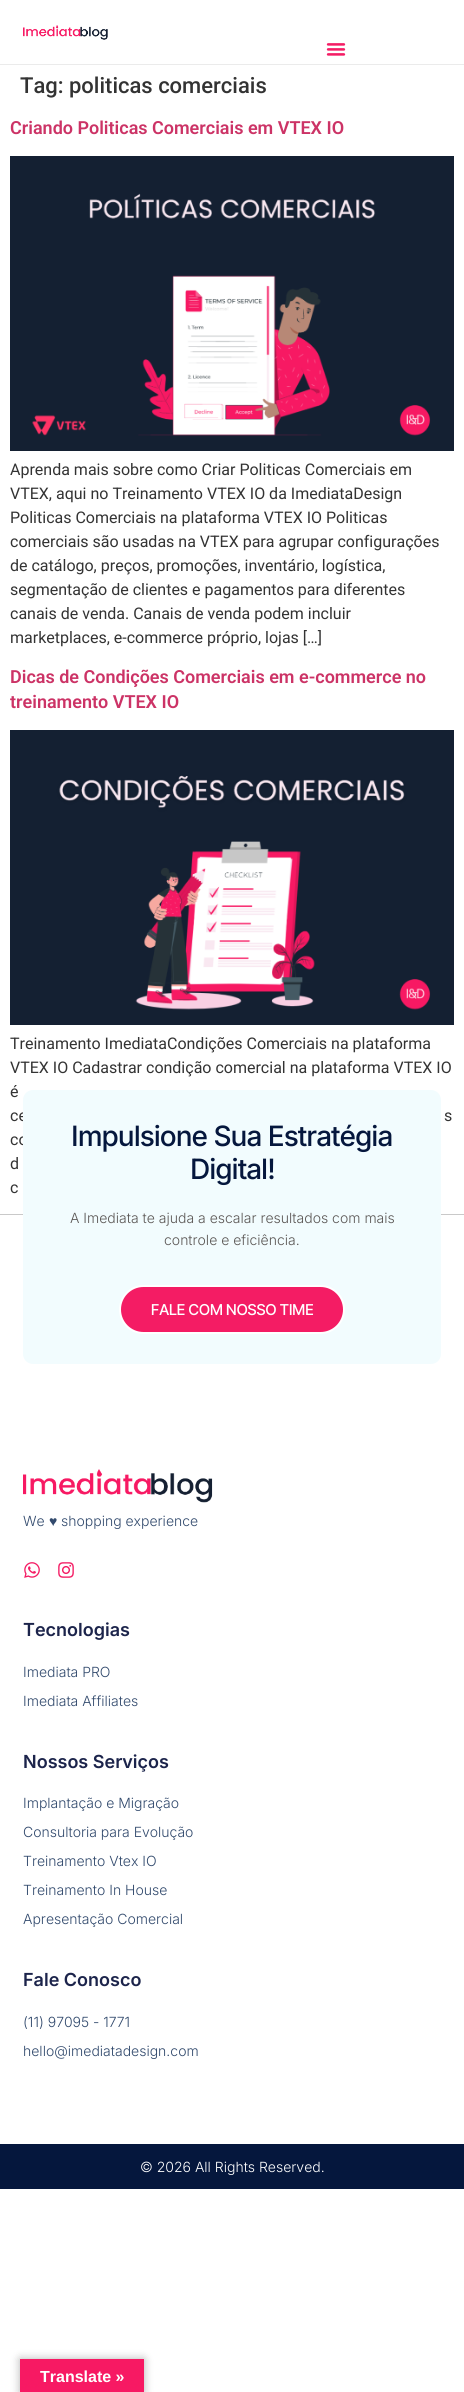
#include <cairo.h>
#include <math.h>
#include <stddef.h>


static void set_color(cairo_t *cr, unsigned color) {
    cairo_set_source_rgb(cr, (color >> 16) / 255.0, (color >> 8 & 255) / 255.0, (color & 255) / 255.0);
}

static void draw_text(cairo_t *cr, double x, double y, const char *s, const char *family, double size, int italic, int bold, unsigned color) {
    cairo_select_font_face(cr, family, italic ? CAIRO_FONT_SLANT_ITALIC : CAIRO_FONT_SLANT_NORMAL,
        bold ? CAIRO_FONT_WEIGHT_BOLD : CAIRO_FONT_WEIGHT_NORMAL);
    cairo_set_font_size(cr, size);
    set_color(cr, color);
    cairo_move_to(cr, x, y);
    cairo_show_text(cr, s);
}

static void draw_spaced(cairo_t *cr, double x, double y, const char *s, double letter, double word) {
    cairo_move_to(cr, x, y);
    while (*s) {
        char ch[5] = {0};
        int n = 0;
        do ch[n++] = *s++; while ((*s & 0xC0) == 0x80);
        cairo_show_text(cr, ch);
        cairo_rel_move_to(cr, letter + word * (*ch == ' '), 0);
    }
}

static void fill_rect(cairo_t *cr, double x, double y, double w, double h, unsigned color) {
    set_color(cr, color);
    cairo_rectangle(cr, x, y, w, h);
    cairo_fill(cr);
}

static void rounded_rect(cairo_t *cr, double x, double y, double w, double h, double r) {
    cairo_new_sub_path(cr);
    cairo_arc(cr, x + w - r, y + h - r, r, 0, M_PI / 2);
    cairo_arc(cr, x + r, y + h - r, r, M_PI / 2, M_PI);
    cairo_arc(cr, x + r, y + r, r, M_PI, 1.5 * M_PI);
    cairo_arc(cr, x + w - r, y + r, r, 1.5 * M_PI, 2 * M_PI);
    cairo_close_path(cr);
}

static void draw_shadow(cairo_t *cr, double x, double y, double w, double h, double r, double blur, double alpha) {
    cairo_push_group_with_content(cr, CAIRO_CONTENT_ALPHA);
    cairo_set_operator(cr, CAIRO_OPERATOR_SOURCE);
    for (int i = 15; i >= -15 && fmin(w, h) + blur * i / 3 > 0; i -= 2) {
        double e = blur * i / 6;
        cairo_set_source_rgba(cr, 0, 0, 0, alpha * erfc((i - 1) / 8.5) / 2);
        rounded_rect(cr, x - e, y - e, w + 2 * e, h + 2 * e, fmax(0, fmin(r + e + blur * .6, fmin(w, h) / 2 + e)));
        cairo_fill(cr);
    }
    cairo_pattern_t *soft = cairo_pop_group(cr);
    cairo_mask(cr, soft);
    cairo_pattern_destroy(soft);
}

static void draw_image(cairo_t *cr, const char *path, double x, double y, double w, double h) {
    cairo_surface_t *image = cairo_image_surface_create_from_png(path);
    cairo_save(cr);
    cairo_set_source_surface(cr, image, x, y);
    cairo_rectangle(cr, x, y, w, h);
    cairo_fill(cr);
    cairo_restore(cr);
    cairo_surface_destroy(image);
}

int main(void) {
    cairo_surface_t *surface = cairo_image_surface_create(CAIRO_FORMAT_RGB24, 464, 2392);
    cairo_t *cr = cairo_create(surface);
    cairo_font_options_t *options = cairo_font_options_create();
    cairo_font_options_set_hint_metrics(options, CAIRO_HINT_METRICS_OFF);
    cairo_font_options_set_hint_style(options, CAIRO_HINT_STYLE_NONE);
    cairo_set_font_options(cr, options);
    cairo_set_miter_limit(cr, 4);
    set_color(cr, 0xFFFFFF);
    cairo_paint(cr);
    fill_rect(cr, 0, 64, 464, 1, 0xEBEBEB);
    draw_image(cr, "assets/img1.png", 23, 25, 85, 15);
    draw_image(cr, "assets/img2.png", 326, 43, 20, 13);
    draw_text(cr, 20, 93, "Tag: politicas comerciais", "Roboto Medium", 22, 0, 0, 0x333333);
    draw_text(cr, 10, 134, "Criando Politicas Comerciais em VTEX IO", "Roboto SemiBold", 18, 0, 0, 0xCC3366);
    draw_image(cr, "assets/img3.png", 10, 156, 444, 295);
    draw_text(cr, 10, 475, "Aprenda mais sobre como Criar Politicas Comerciais em", "Roboto", 16, 0, 0, 0x333333);
    draw_text(cr, 10, 499, "VTEX, aqui no Treinamento VTEX IO da ImediataDesign", "Roboto", 16, 0, 0, 0x333333);
    draw_text(cr, 10, 523, "Politicas Comerciais na plataforma VTEX IO Politicas", "Roboto", 16, 0, 0, 0x333333);
    draw_text(cr, 10, 547, "comerciais são usadas na VTEX para agrupar configurações", "Roboto", 16, 0, 0, 0x333333);
    draw_text(cr, 10, 571, "de catálogo, preços, promoções, inventário, logística,", "Roboto", 16, 0, 0, 0x333333);
    draw_text(cr, 10, 595, "segmentação de clientes e pagamentos para diferentes", "Roboto", 16, 0, 0, 0x333333);
    draw_text(cr, 10, 619, "canais de venda. Canais de venda podem incluir", "Roboto", 16, 0, 0, 0x333333);
    draw_text(cr, 10, 643, "marketplaces, e-commerce próprio, lojas […]", "Roboto", 16, 0, 0, 0x333333);
    draw_text(cr, 10, 683, "Dicas de Condições Comerciais em e-commerce no", "Roboto SemiBold", 18, 0, 0, 0xCC3366);
    draw_text(cr, 10, 708, "treinamento VTEX IO", "Roboto SemiBold", 18, 0, 0, 0xCC3366);
    draw_image(cr, "assets/img4.png", 10, 730, 444, 295);
    draw_text(cr, 10, 1049, "Treinamento ImediataCondições Comerciais na plataforma", "Roboto", 16, 0, 0, 0x333333);
    draw_text(cr, 10, 1073, "VTEX IO Cadastrar condição comercial na plataforma VTEX IO", "Roboto", 16, 0, 0, 0x333333);
    draw_text(cr, 10, 1097, "é", "Roboto", 16, 0, 0, 0x333333);
    draw_text(cr, 10, 1121, "ce", "Roboto", 16, 0, 0, 0x333333);
    draw_text(cr, 444, 1121, "s", "Roboto", 16, 0, 0, 0x333333);
    draw_text(cr, 10, 1145, "co", "Roboto", 16, 0, 0, 0x333333);
    draw_text(cr, 10, 1169, "d", "Roboto", 16, 0, 0, 0x333333);
    draw_text(cr, 10, 1193, "c", "Roboto", 16, 0, 0, 0x333333);
    fill_rect(cr, 0, 1214, 464, 1, 0xC9C9C9);
    set_color(cr, 0xF2FCFE);
    rounded_rect(cr, 23, 1090, 418, 274, 10);
    cairo_fill(cr);
    cairo_select_font_face(cr, "Inter Medium", CAIRO_FONT_SLANT_NORMAL, CAIRO_FONT_WEIGHT_NORMAL);
    cairo_set_font_size(cr, 28);
    set_color(cr, 0x05173D);
    draw_spaced(cr, 71, 1146, "Impulsione Sua Estratégia", -1, 0);
    draw_spaced(cr, 190, 1179, "Digital!", -1, 0);
    draw_text(cr, 70, 1223, "A Imediata te ajuda a escalar resultados com mais", "Inter Light", 14, 0, 0, 0x5B5755);
    draw_text(cr, 164, 1245, "controle e eficiência.", "Inter Light", 14, 0, 0, 0x5B5755);
    set_color(cr, 0xF41C64);
    rounded_rect(cr, 120, 1286, 224, 47, 23.5);
    cairo_fill_preserve(cr);
    set_color(cr, 0xFFFFFF);
    cairo_stroke(cr);
    draw_text(cr, 151, 1315, "FALE COM NOSSO TIME", "Inter Tight Medium", 15, 0, 0, 0xFFFFFF);
    draw_image(cr, "assets/img5.png", 23, 1469, 190, 34);
    draw_text(cr, 23, 1526, "We", "Inter Light", 14, 0, 0, 0x324A6D);
    draw_text(cr, 49, 1526, "♥", "Liberation Sans", 14, 0, 0, 0x324A6D);
    draw_text(cr, 61, 1526, "shopping experience", "Inter Light", 14, 0, 0, 0x324A6D);
    draw_image(cr, "assets/img6.png", 24, 1562, 16, 16);
    draw_image(cr, "assets/img7.png", 58, 1562, 16, 16);
    draw_text(cr, 23, 1636, "Tecnologias", "Inter SemiBold", 18, 0, 0, 0x1C244B);
    draw_text(cr, 23, 1677, "Imediata PRO", "Inter Light", 14, 0, 0, 0x324A6D);
    draw_text(cr, 23, 1706, "Imediata Affiliates", "Inter Light", 14, 0, 0, 0x324A6D);
    draw_text(cr, 23, 1768, "Nossos Serviços", "Inter SemiBold", 18, 0, 0, 0x1C244B);
    draw_text(cr, 23, 1808, "Implantação e Migração", "Inter Light", 14, 0, 0, 0x324A6D);
    draw_text(cr, 23, 1837, "Consultoria para Evolução", "Inter Light", 14, 0, 0, 0x324A6D);
    draw_text(cr, 23, 1866, "Treinamento Vtex IO", "Inter Light", 14, 0, 0, 0x324A6D);
    draw_text(cr, 23, 1895, "Treinamento In House", "Inter Light", 14, 0, 0, 0x324A6D);
    draw_text(cr, 23, 1924, "Apresentação Comercial", "Inter Light", 14, 0, 0, 0x324A6D);
    draw_text(cr, 23, 1986, "Fale Conosco", "Inter SemiBold", 18, 0, 0, 0x1C244B);
    draw_text(cr, 23, 2027, "(11) 97095 - 1771", "Inter Light", 14, 0, 0, 0x324A6D);
    draw_text(cr, 23, 2056, "hello@imediatadesign.com", "Inter Light", 14, 0, 0, 0x324A6D);
    fill_rect(cr, 0, 2144, 464, 45, 0x05173D);
    draw_text(cr, 140, 2172, "© 2026 All Rights Reserved.", "Inter Light", 14, 0, 0, 0xFFFFFF);
    set_color(cr, 0x000000);
    draw_shadow(cr, 20, 2359, 124, 33, 0, 4.5, 0.3);
    fill_rect(cr, 20, 2359, 124, 33, 0xF71963);
    draw_text(cr, 40, 2382, "Translate »", "Liberation Sans", 16, 0, 1, 0xFFFFFF);
    cairo_surface_write_to_png(surface, "output.png");
    cairo_font_options_destroy(options);
    cairo_destroy(cr);
    cairo_surface_destroy(surface);
    return 0;
}
